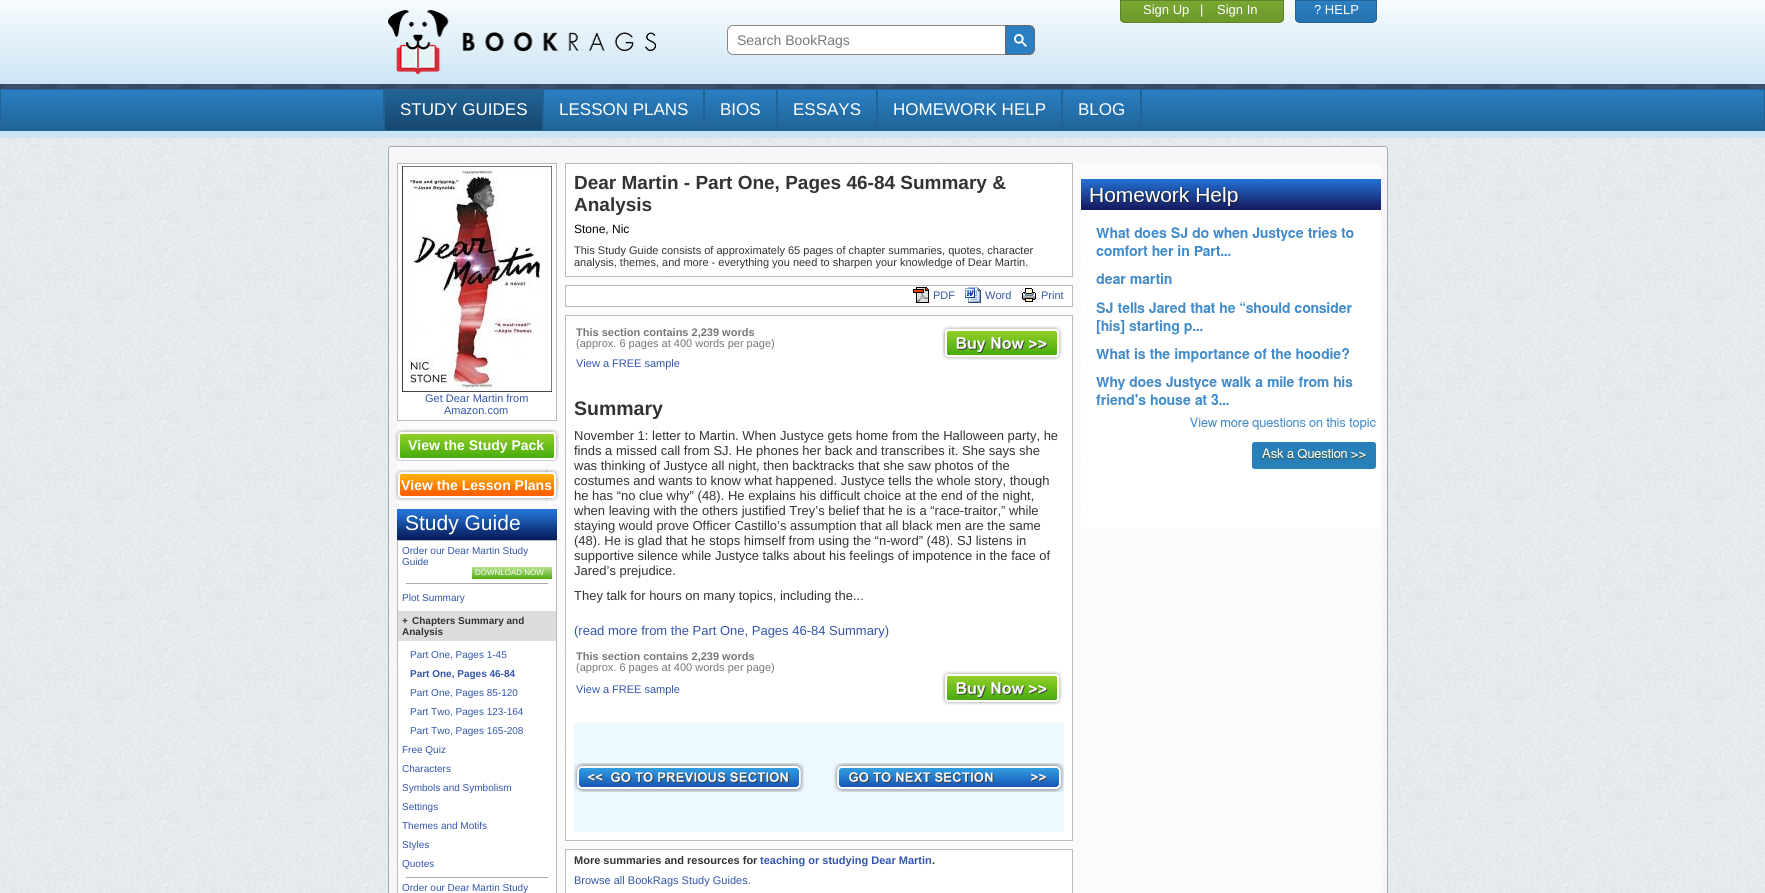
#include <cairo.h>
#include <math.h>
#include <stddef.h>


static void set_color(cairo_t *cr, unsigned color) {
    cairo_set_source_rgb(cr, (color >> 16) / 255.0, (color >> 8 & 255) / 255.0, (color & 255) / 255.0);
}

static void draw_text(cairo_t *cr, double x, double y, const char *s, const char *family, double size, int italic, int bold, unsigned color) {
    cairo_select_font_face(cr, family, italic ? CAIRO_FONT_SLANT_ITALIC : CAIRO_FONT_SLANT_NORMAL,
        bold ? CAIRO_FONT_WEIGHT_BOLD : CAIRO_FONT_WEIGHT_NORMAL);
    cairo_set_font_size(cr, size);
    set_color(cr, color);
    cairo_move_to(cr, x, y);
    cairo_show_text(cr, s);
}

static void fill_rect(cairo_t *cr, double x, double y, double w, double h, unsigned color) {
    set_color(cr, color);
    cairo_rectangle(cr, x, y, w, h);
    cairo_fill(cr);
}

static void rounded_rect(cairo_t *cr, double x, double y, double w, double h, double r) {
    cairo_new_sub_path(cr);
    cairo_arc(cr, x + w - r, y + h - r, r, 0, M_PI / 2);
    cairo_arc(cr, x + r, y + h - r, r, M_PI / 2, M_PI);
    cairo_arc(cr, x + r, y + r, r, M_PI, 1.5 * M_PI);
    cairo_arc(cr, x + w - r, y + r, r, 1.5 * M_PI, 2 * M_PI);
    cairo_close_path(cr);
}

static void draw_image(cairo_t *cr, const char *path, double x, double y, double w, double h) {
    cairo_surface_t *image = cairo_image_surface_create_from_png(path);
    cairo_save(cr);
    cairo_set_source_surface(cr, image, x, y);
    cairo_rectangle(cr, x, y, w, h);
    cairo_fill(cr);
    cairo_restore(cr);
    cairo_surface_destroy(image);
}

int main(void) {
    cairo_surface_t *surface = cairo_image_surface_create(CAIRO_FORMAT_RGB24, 1765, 893);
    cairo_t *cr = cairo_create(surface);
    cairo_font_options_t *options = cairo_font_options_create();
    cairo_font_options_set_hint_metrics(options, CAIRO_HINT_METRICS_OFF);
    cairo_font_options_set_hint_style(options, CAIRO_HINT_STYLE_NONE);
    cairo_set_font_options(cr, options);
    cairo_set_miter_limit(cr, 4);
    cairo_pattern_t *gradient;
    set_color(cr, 0xFFFFFF);
    cairo_paint(cr);
    draw_image(cr, "assets/img1.png", 0, 138, 1765, 755);
    gradient = cairo_pattern_create_linear(883, 0, 883, 84);
    cairo_pattern_add_color_stop_rgba(gradient, 0, 0.969, 0.984, 0.992, 1);
    cairo_pattern_add_color_stop_rgba(gradient, 1, 0.8, 0.898, 0.961, 1);
    cairo_set_source(cr, gradient);
    cairo_pattern_destroy(gradient);
    cairo_rectangle(cr, 0, 0, 1765, 84);
    cairo_fill(cr);
    draw_image(cr, "assets/img2.png", 388, 10, 268, 64);
    set_color(cr, 0xFFFFFF);
    cairo_new_path(cr);
    cairo_move_to(cr, 733, 25.5);
    cairo_line_to(cr, 1005.5, 25.5);
    cairo_line_to(cr, 1005.5, 54.5);
    cairo_line_to(cr, 733, 54.5);
    cairo_curve_to(cr, 730, 54.5, 727.5, 52, 727.5, 49);
    cairo_line_to(cr, 727.5, 31);
    cairo_curve_to(cr, 727.5, 28, 730, 25.5, 733, 25.5);
    cairo_close_path(cr);
    cairo_fill_preserve(cr);
    set_color(cr, 0x888888);
    cairo_set_line_width(cr, 1);
    cairo_stroke(cr);
    draw_text(cr, 737, 45, "Search BookRags", "Liberation Sans", 14, 0, 0, 0x777777);
    set_color(cr, 0x2A7FC2);
    cairo_new_path(cr);
    cairo_move_to(cr, 1005.5, 25.5);
    cairo_line_to(cr, 1029, 25.5);
    cairo_curve_to(cr, 1032, 25.5, 1034.5, 28, 1034.5, 31);
    cairo_line_to(cr, 1034.5, 49);
    cairo_curve_to(cr, 1034.5, 52, 1032, 54.5, 1029, 54.5);
    cairo_line_to(cr, 1005.5, 54.5);
    cairo_close_path(cr);
    cairo_fill_preserve(cr);
    set_color(cr, 0x666666);
    cairo_stroke(cr);
    draw_image(cr, "assets/img3.png", 1014, 34, 13, 13);
    cairo_save(cr);
    cairo_new_path(cr);
    cairo_move_to(cr, 1120, 0);
    cairo_line_to(cr, 1284, 0);
    cairo_line_to(cr, 1284, 18);
    cairo_curve_to(cr, 1284, 21, 1282, 23, 1279, 23);
    cairo_line_to(cr, 1125, 23);
    cairo_curve_to(cr, 1122, 23, 1120, 21, 1120, 18);
    cairo_close_path(cr);
    cairo_clip(cr);
    gradient = cairo_pattern_create_linear(1202, 1, 1202, 22);
    cairo_pattern_add_color_stop_rgba(gradient, 0, 0.471, 0.659, 0.192, 1);
    cairo_pattern_add_color_stop_rgba(gradient, 1, 0.427, 0.596, 0.173, 1);
    cairo_set_source(cr, gradient);
    cairo_pattern_destroy(gradient);
    cairo_rectangle(cr, 1120, 1, 164, 21);
    cairo_fill(cr);
    cairo_restore(cr);
    cairo_new_path(cr);
    cairo_move_to(cr, 1120.5, 0.5);
    cairo_line_to(cr, 1283.5, 0.5);
    cairo_line_to(cr, 1283.5, 18);
    cairo_curve_to(cr, 1283.5, 20.5, 1281.5, 22.5, 1279, 22.5);
    cairo_line_to(cr, 1125, 22.5);
    cairo_curve_to(cr, 1122.5, 22.5, 1120.5, 20.5, 1120.5, 18);
    cairo_close_path(cr);
    set_color(cr, 0x5F8427);
    cairo_stroke(cr);
    draw_text(cr, 1143, 14, "Sign Up", "Liberation Sans", 13, 0, 0, 0xFFFFFF);
    draw_text(cr, 1200, 14, "|", "Liberation Sans", 13, 0, 0, 0xFFFFFF);
    draw_text(cr, 1217, 14, "Sign In", "Liberation Sans", 13, 0, 0, 0xFFFFFF);
    cairo_save(cr);
    cairo_new_path(cr);
    cairo_move_to(cr, 1295, 0);
    cairo_line_to(cr, 1377, 0);
    cairo_line_to(cr, 1377, 18);
    cairo_curve_to(cr, 1377, 21, 1375, 23, 1372, 23);
    cairo_line_to(cr, 1300, 23);
    cairo_curve_to(cr, 1297, 23, 1295, 21, 1295, 18);
    cairo_close_path(cr);
    cairo_clip(cr);
    gradient = cairo_pattern_create_linear(1336, 1, 1336, 22);
    cairo_pattern_add_color_stop_rgba(gradient, 0, 0.165, 0.498, 0.761, 1);
    cairo_pattern_add_color_stop_rgba(gradient, 1, 0.149, 0.455, 0.694, 1);
    cairo_set_source(cr, gradient);
    cairo_pattern_destroy(gradient);
    cairo_rectangle(cr, 1295, 1, 82, 21);
    cairo_fill(cr);
    cairo_restore(cr);
    cairo_new_path(cr);
    cairo_move_to(cr, 1295.5, 0.5);
    cairo_line_to(cr, 1376.5, 0.5);
    cairo_line_to(cr, 1376.5, 18);
    cairo_curve_to(cr, 1376.5, 20.5, 1374.5, 22.5, 1372, 22.5);
    cairo_line_to(cr, 1300, 22.5);
    cairo_curve_to(cr, 1297.5, 22.5, 1295.5, 20.5, 1295.5, 18);
    cairo_close_path(cr);
    set_color(cr, 0x22669C);
    cairo_stroke(cr);
    draw_text(cr, 1314, 14, "? HELP", "Liberation Sans", 13, 0, 0, 0xFFFFFF);
    gradient = cairo_pattern_create_linear(1325, 529, 434, -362);
    cairo_pattern_add_color_stop_rgba(gradient, 0, 0.239, 0.31, 0.424, 1);
    cairo_pattern_add_color_stop_rgba(gradient, 0.01, 0.239, 0.31, 0.424, 1);
    cairo_pattern_add_color_stop_rgba(gradient, 0.01, 0.216, 0.282, 0.384, 1);
    cairo_pattern_add_color_stop_rgba(gradient, 0.02, 0.216, 0.282, 0.384, 1);
    cairo_pattern_add_color_stop_rgba(gradient, 0.02, 0.239, 0.31, 0.424, 1);
    cairo_pattern_add_color_stop_rgba(gradient, 0.02, 0.239, 0.31, 0.424, 1);
    cairo_pattern_add_color_stop_rgba(gradient, 0.02, 0.216, 0.282, 0.384, 1);
    cairo_pattern_add_color_stop_rgba(gradient, 0.03, 0.216, 0.282, 0.384, 1);
    cairo_pattern_add_color_stop_rgba(gradient, 0.03, 0.239, 0.31, 0.424, 1);
    cairo_pattern_add_color_stop_rgba(gradient, 0.04, 0.239, 0.31, 0.424, 1);
    cairo_pattern_add_color_stop_rgba(gradient, 0.04, 0.216, 0.282, 0.384, 1);
    cairo_pattern_add_color_stop_rgba(gradient, 0.05, 0.216, 0.282, 0.384, 1);
    cairo_pattern_add_color_stop_rgba(gradient, 0.05, 0.239, 0.31, 0.424, 1);
    cairo_pattern_add_color_stop_rgba(gradient, 0.06, 0.239, 0.31, 0.424, 1);
    cairo_pattern_add_color_stop_rgba(gradient, 0.06, 0.216, 0.282, 0.384, 1);
    cairo_pattern_add_color_stop_rgba(gradient, 0.06, 0.216, 0.282, 0.384, 1);
    cairo_pattern_add_color_stop_rgba(gradient, 0.06, 0.239, 0.31, 0.424, 1);
    cairo_pattern_add_color_stop_rgba(gradient, 0.07, 0.239, 0.31, 0.424, 1);
    cairo_pattern_add_color_stop_rgba(gradient, 0.07, 0.216, 0.282, 0.384, 1);
    cairo_pattern_add_color_stop_rgba(gradient, 0.08, 0.216, 0.282, 0.384, 1);
    cairo_pattern_add_color_stop_rgba(gradient, 0.08, 0.239, 0.31, 0.424, 1);
    cairo_pattern_add_color_stop_rgba(gradient, 0.09, 0.239, 0.31, 0.424, 1);
    cairo_pattern_add_color_stop_rgba(gradient, 0.09, 0.216, 0.282, 0.384, 1);
    cairo_pattern_add_color_stop_rgba(gradient, 0.1, 0.216, 0.282, 0.384, 1);
    cairo_pattern_add_color_stop_rgba(gradient, 0.1, 0.239, 0.31, 0.424, 1);
    cairo_pattern_add_color_stop_rgba(gradient, 0.1, 0.239, 0.31, 0.424, 1);
    cairo_pattern_add_color_stop_rgba(gradient, 0.1, 0.216, 0.282, 0.384, 1);
    cairo_pattern_add_color_stop_rgba(gradient, 0.11, 0.216, 0.282, 0.384, 1);
    cairo_pattern_add_color_stop_rgba(gradient, 0.11, 0.239, 0.31, 0.424, 1);
    cairo_pattern_add_color_stop_rgba(gradient, 0.12, 0.239, 0.31, 0.424, 1);
    cairo_pattern_add_color_stop_rgba(gradient, 0.12, 0.216, 0.282, 0.384, 1);
    cairo_pattern_add_color_stop_rgba(gradient, 0.13, 0.216, 0.282, 0.384, 1);
    cairo_pattern_add_color_stop_rgba(gradient, 0.13, 0.239, 0.31, 0.424, 1);
    cairo_pattern_add_color_stop_rgba(gradient, 0.13, 0.239, 0.31, 0.424, 1);
    cairo_pattern_add_color_stop_rgba(gradient, 0.13, 0.216, 0.282, 0.384, 1);
    cairo_pattern_add_color_stop_rgba(gradient, 0.14, 0.216, 0.282, 0.384, 1);
    cairo_pattern_add_color_stop_rgba(gradient, 0.14, 0.239, 0.31, 0.424, 1);
    cairo_pattern_add_color_stop_rgba(gradient, 0.15, 0.239, 0.31, 0.424, 1);
    cairo_pattern_add_color_stop_rgba(gradient, 0.15, 0.216, 0.282, 0.384, 1);
    cairo_pattern_add_color_stop_rgba(gradient, 0.16, 0.216, 0.282, 0.384, 1);
    cairo_pattern_add_color_stop_rgba(gradient, 0.16, 0.239, 0.31, 0.424, 1);
    cairo_pattern_add_color_stop_rgba(gradient, 0.17, 0.239, 0.31, 0.424, 1);
    cairo_pattern_add_color_stop_rgba(gradient, 0.17, 0.216, 0.282, 0.384, 1);
    cairo_pattern_add_color_stop_rgba(gradient, 0.17, 0.216, 0.282, 0.384, 1);
    cairo_pattern_add_color_stop_rgba(gradient, 0.17, 0.239, 0.31, 0.424, 1);
    cairo_pattern_add_color_stop_rgba(gradient, 0.18, 0.239, 0.31, 0.424, 1);
    cairo_pattern_add_color_stop_rgba(gradient, 0.18, 0.216, 0.282, 0.384, 1);
    cairo_pattern_add_color_stop_rgba(gradient, 0.19, 0.216, 0.282, 0.384, 1);
    cairo_pattern_add_color_stop_rgba(gradient, 0.19, 0.239, 0.31, 0.424, 1);
    cairo_pattern_add_color_stop_rgba(gradient, 0.2, 0.239, 0.31, 0.424, 1);
    cairo_pattern_add_color_stop_rgba(gradient, 0.2, 0.216, 0.282, 0.384, 1);
    cairo_pattern_add_color_stop_rgba(gradient, 0.21, 0.216, 0.282, 0.384, 1);
    cairo_pattern_add_color_stop_rgba(gradient, 0.21, 0.239, 0.31, 0.424, 1);
    cairo_pattern_add_color_stop_rgba(gradient, 0.21, 0.239, 0.31, 0.424, 1);
    cairo_pattern_add_color_stop_rgba(gradient, 0.21, 0.216, 0.282, 0.384, 1);
    cairo_pattern_add_color_stop_rgba(gradient, 0.22, 0.216, 0.282, 0.384, 1);
    cairo_pattern_add_color_stop_rgba(gradient, 0.22, 0.239, 0.31, 0.424, 1);
    cairo_pattern_add_color_stop_rgba(gradient, 0.23, 0.239, 0.31, 0.424, 1);
    cairo_pattern_add_color_stop_rgba(gradient, 0.23, 0.216, 0.282, 0.384, 1);
    cairo_pattern_add_color_stop_rgba(gradient, 0.24, 0.216, 0.282, 0.384, 1);
    cairo_pattern_add_color_stop_rgba(gradient, 0.24, 0.239, 0.31, 0.424, 1);
    cairo_pattern_add_color_stop_rgba(gradient, 0.25, 0.239, 0.31, 0.424, 1);
    cairo_pattern_add_color_stop_rgba(gradient, 0.25, 0.216, 0.282, 0.384, 1);
    cairo_pattern_add_color_stop_rgba(gradient, 0.25, 0.216, 0.282, 0.384, 1);
    cairo_pattern_add_color_stop_rgba(gradient, 0.25, 0.239, 0.31, 0.424, 1);
    cairo_pattern_add_color_stop_rgba(gradient, 0.26, 0.239, 0.31, 0.424, 1);
    cairo_pattern_add_color_stop_rgba(gradient, 0.26, 0.216, 0.282, 0.384, 1);
    cairo_pattern_add_color_stop_rgba(gradient, 0.27, 0.216, 0.282, 0.384, 1);
    cairo_pattern_add_color_stop_rgba(gradient, 0.27, 0.239, 0.31, 0.424, 1);
    cairo_pattern_add_color_stop_rgba(gradient, 0.28, 0.239, 0.31, 0.424, 1);
    cairo_pattern_add_color_stop_rgba(gradient, 0.28, 0.216, 0.282, 0.384, 1);
    cairo_pattern_add_color_stop_rgba(gradient, 0.29, 0.216, 0.282, 0.384, 1);
    cairo_pattern_add_color_stop_rgba(gradient, 0.29, 0.239, 0.31, 0.424, 1);
    cairo_pattern_add_color_stop_rgba(gradient, 0.29, 0.239, 0.31, 0.424, 1);
    cairo_pattern_add_color_stop_rgba(gradient, 0.29, 0.216, 0.282, 0.384, 1);
    cairo_pattern_add_color_stop_rgba(gradient, 0.3, 0.216, 0.282, 0.384, 1);
    cairo_pattern_add_color_stop_rgba(gradient, 0.3, 0.239, 0.31, 0.424, 1);
    cairo_pattern_add_color_stop_rgba(gradient, 0.31, 0.239, 0.31, 0.424, 1);
    cairo_pattern_add_color_stop_rgba(gradient, 0.31, 0.216, 0.282, 0.384, 1);
    cairo_pattern_add_color_stop_rgba(gradient, 0.32, 0.216, 0.282, 0.384, 1);
    cairo_pattern_add_color_stop_rgba(gradient, 0.32, 0.239, 0.31, 0.424, 1);
    cairo_pattern_add_color_stop_rgba(gradient, 0.33, 0.239, 0.31, 0.424, 1);
    cairo_pattern_add_color_stop_rgba(gradient, 0.33, 0.216, 0.282, 0.384, 1);
    cairo_pattern_add_color_stop_rgba(gradient, 0.33, 0.216, 0.282, 0.384, 1);
    cairo_pattern_add_color_stop_rgba(gradient, 0.33, 0.239, 0.31, 0.424, 1);
    cairo_pattern_add_color_stop_rgba(gradient, 0.34, 0.239, 0.31, 0.424, 1);
    cairo_pattern_add_color_stop_rgba(gradient, 0.34, 0.216, 0.282, 0.384, 1);
    cairo_pattern_add_color_stop_rgba(gradient, 0.35, 0.216, 0.282, 0.384, 1);
    cairo_pattern_add_color_stop_rgba(gradient, 0.35, 0.239, 0.31, 0.424, 1);
    cairo_pattern_add_color_stop_rgba(gradient, 0.36, 0.239, 0.31, 0.424, 1);
    cairo_pattern_add_color_stop_rgba(gradient, 0.36, 0.216, 0.282, 0.384, 1);
    cairo_pattern_add_color_stop_rgba(gradient, 0.37, 0.216, 0.282, 0.384, 1);
    cairo_pattern_add_color_stop_rgba(gradient, 0.37, 0.239, 0.31, 0.424, 1);
    cairo_pattern_add_color_stop_rgba(gradient, 0.37, 0.239, 0.31, 0.424, 1);
    cairo_pattern_add_color_stop_rgba(gradient, 0.37, 0.216, 0.282, 0.384, 1);
    cairo_pattern_add_color_stop_rgba(gradient, 0.38, 0.216, 0.282, 0.384, 1);
    cairo_pattern_add_color_stop_rgba(gradient, 0.38, 0.239, 0.31, 0.424, 1);
    cairo_pattern_add_color_stop_rgba(gradient, 0.39, 0.239, 0.31, 0.424, 1);
    cairo_pattern_add_color_stop_rgba(gradient, 0.39, 0.216, 0.282, 0.384, 1);
    cairo_pattern_add_color_stop_rgba(gradient, 0.4, 0.216, 0.282, 0.384, 1);
    cairo_pattern_add_color_stop_rgba(gradient, 0.4, 0.239, 0.31, 0.424, 1);
    cairo_pattern_add_color_stop_rgba(gradient, 0.4, 0.239, 0.31, 0.424, 1);
    cairo_pattern_add_color_stop_rgba(gradient, 0.4, 0.216, 0.282, 0.384, 1);
    cairo_pattern_add_color_stop_rgba(gradient, 0.41, 0.216, 0.282, 0.384, 1);
    cairo_pattern_add_color_stop_rgba(gradient, 0.41, 0.239, 0.31, 0.424, 1);
    cairo_pattern_add_color_stop_rgba(gradient, 0.42, 0.239, 0.31, 0.424, 1);
    cairo_pattern_add_color_stop_rgba(gradient, 0.42, 0.216, 0.282, 0.384, 1);
    cairo_pattern_add_color_stop_rgba(gradient, 0.43, 0.216, 0.282, 0.384, 1);
    cairo_pattern_add_color_stop_rgba(gradient, 0.43, 0.239, 0.31, 0.424, 1);
    cairo_pattern_add_color_stop_rgba(gradient, 0.44, 0.239, 0.31, 0.424, 1);
    cairo_pattern_add_color_stop_rgba(gradient, 0.44, 0.216, 0.282, 0.384, 1);
    cairo_pattern_add_color_stop_rgba(gradient, 0.44, 0.216, 0.282, 0.384, 1);
    cairo_pattern_add_color_stop_rgba(gradient, 0.44, 0.239, 0.31, 0.424, 1);
    cairo_pattern_add_color_stop_rgba(gradient, 0.45, 0.239, 0.31, 0.424, 1);
    cairo_pattern_add_color_stop_rgba(gradient, 0.45, 0.216, 0.282, 0.384, 1);
    cairo_pattern_add_color_stop_rgba(gradient, 0.46, 0.216, 0.282, 0.384, 1);
    cairo_pattern_add_color_stop_rgba(gradient, 0.46, 0.239, 0.31, 0.424, 1);
    cairo_pattern_add_color_stop_rgba(gradient, 0.47, 0.239, 0.31, 0.424, 1);
    cairo_pattern_add_color_stop_rgba(gradient, 0.47, 0.216, 0.282, 0.384, 1);
    cairo_pattern_add_color_stop_rgba(gradient, 0.48, 0.216, 0.282, 0.384, 1);
    cairo_pattern_add_color_stop_rgba(gradient, 0.48, 0.239, 0.31, 0.424, 1);
    cairo_pattern_add_color_stop_rgba(gradient, 0.48, 0.239, 0.31, 0.424, 1);
    cairo_pattern_add_color_stop_rgba(gradient, 0.48, 0.216, 0.282, 0.384, 1);
    cairo_pattern_add_color_stop_rgba(gradient, 0.49, 0.216, 0.282, 0.384, 1);
    cairo_pattern_add_color_stop_rgba(gradient, 0.49, 0.239, 0.31, 0.424, 1);
    cairo_pattern_add_color_stop_rgba(gradient, 0.5, 0.239, 0.31, 0.424, 1);
    cairo_pattern_add_color_stop_rgba(gradient, 0.5, 0.216, 0.282, 0.384, 1);
    cairo_pattern_add_color_stop_rgba(gradient, 0.51, 0.216, 0.282, 0.384, 1);
    cairo_pattern_add_color_stop_rgba(gradient, 0.51, 0.239, 0.31, 0.424, 1);
    cairo_pattern_add_color_stop_rgba(gradient, 0.52, 0.239, 0.31, 0.424, 1);
    cairo_pattern_add_color_stop_rgba(gradient, 0.52, 0.216, 0.282, 0.384, 1);
    cairo_pattern_add_color_stop_rgba(gradient, 0.52, 0.216, 0.282, 0.384, 1);
    cairo_pattern_add_color_stop_rgba(gradient, 0.52, 0.239, 0.31, 0.424, 1);
    cairo_pattern_add_color_stop_rgba(gradient, 0.53, 0.239, 0.31, 0.424, 1);
    cairo_pattern_add_color_stop_rgba(gradient, 0.53, 0.216, 0.282, 0.384, 1);
    cairo_pattern_add_color_stop_rgba(gradient, 0.54, 0.216, 0.282, 0.384, 1);
    cairo_pattern_add_color_stop_rgba(gradient, 0.54, 0.239, 0.31, 0.424, 1);
    cairo_pattern_add_color_stop_rgba(gradient, 0.55, 0.239, 0.31, 0.424, 1);
    cairo_pattern_add_color_stop_rgba(gradient, 0.55, 0.216, 0.282, 0.384, 1);
    cairo_pattern_add_color_stop_rgba(gradient, 0.56, 0.216, 0.282, 0.384, 1);
    cairo_pattern_add_color_stop_rgba(gradient, 0.56, 0.239, 0.31, 0.424, 1);
    cairo_pattern_add_color_stop_rgba(gradient, 0.56, 0.239, 0.31, 0.424, 1);
    cairo_pattern_add_color_stop_rgba(gradient, 0.56, 0.216, 0.282, 0.384, 1);
    cairo_pattern_add_color_stop_rgba(gradient, 0.57, 0.216, 0.282, 0.384, 1);
    cairo_pattern_add_color_stop_rgba(gradient, 0.57, 0.239, 0.31, 0.424, 1);
    cairo_pattern_add_color_stop_rgba(gradient, 0.58, 0.239, 0.31, 0.424, 1);
    cairo_pattern_add_color_stop_rgba(gradient, 0.58, 0.216, 0.282, 0.384, 1);
    cairo_pattern_add_color_stop_rgba(gradient, 0.59, 0.216, 0.282, 0.384, 1);
    cairo_pattern_add_color_stop_rgba(gradient, 0.59, 0.239, 0.31, 0.424, 1);
    cairo_pattern_add_color_stop_rgba(gradient, 0.6, 0.239, 0.31, 0.424, 1);
    cairo_pattern_add_color_stop_rgba(gradient, 0.6, 0.216, 0.282, 0.384, 1);
    cairo_pattern_add_color_stop_rgba(gradient, 0.6, 0.216, 0.282, 0.384, 1);
    cairo_pattern_add_color_stop_rgba(gradient, 0.6, 0.239, 0.31, 0.424, 1);
    cairo_pattern_add_color_stop_rgba(gradient, 0.61, 0.239, 0.31, 0.424, 1);
    cairo_pattern_add_color_stop_rgba(gradient, 0.61, 0.216, 0.282, 0.384, 1);
    cairo_pattern_add_color_stop_rgba(gradient, 0.62, 0.216, 0.282, 0.384, 1);
    cairo_pattern_add_color_stop_rgba(gradient, 0.62, 0.239, 0.31, 0.424, 1);
    cairo_pattern_add_color_stop_rgba(gradient, 0.63, 0.239, 0.31, 0.424, 1);
    cairo_pattern_add_color_stop_rgba(gradient, 0.63, 0.216, 0.282, 0.384, 1);
    cairo_pattern_add_color_stop_rgba(gradient, 0.63, 0.216, 0.282, 0.384, 1);
    cairo_pattern_add_color_stop_rgba(gradient, 0.63, 0.239, 0.31, 0.424, 1);
    cairo_pattern_add_color_stop_rgba(gradient, 0.64, 0.239, 0.31, 0.424, 1);
    cairo_pattern_add_color_stop_rgba(gradient, 0.64, 0.216, 0.282, 0.384, 1);
    cairo_pattern_add_color_stop_rgba(gradient, 0.65, 0.216, 0.282, 0.384, 1);
    cairo_pattern_add_color_stop_rgba(gradient, 0.65, 0.239, 0.31, 0.424, 1);
    cairo_pattern_add_color_stop_rgba(gradient, 0.66, 0.239, 0.31, 0.424, 1);
    cairo_pattern_add_color_stop_rgba(gradient, 0.66, 0.216, 0.282, 0.384, 1);
    cairo_pattern_add_color_stop_rgba(gradient, 0.67, 0.216, 0.282, 0.384, 1);
    cairo_pattern_add_color_stop_rgba(gradient, 0.67, 0.239, 0.31, 0.424, 1);
    cairo_pattern_add_color_stop_rgba(gradient, 0.67, 0.239, 0.31, 0.424, 1);
    cairo_pattern_add_color_stop_rgba(gradient, 0.67, 0.216, 0.282, 0.384, 1);
    cairo_pattern_add_color_stop_rgba(gradient, 0.68, 0.216, 0.282, 0.384, 1);
    cairo_pattern_add_color_stop_rgba(gradient, 0.68, 0.239, 0.31, 0.424, 1);
    cairo_pattern_add_color_stop_rgba(gradient, 0.69, 0.239, 0.31, 0.424, 1);
    cairo_pattern_add_color_stop_rgba(gradient, 0.69, 0.216, 0.282, 0.384, 1);
    cairo_pattern_add_color_stop_rgba(gradient, 0.7, 0.216, 0.282, 0.384, 1);
    cairo_pattern_add_color_stop_rgba(gradient, 0.7, 0.239, 0.31, 0.424, 1);
    cairo_pattern_add_color_stop_rgba(gradient, 0.71, 0.239, 0.31, 0.424, 1);
    cairo_pattern_add_color_stop_rgba(gradient, 0.71, 0.216, 0.282, 0.384, 1);
    cairo_pattern_add_color_stop_rgba(gradient, 0.71, 0.216, 0.282, 0.384, 1);
    cairo_pattern_add_color_stop_rgba(gradient, 0.71, 0.239, 0.31, 0.424, 1);
    cairo_pattern_add_color_stop_rgba(gradient, 0.72, 0.239, 0.31, 0.424, 1);
    cairo_pattern_add_color_stop_rgba(gradient, 0.72, 0.216, 0.282, 0.384, 1);
    cairo_pattern_add_color_stop_rgba(gradient, 0.73, 0.216, 0.282, 0.384, 1);
    cairo_pattern_add_color_stop_rgba(gradient, 0.73, 0.239, 0.31, 0.424, 1);
    cairo_pattern_add_color_stop_rgba(gradient, 0.74, 0.239, 0.31, 0.424, 1);
    cairo_pattern_add_color_stop_rgba(gradient, 0.74, 0.216, 0.282, 0.384, 1);
    cairo_pattern_add_color_stop_rgba(gradient, 0.75, 0.216, 0.282, 0.384, 1);
    cairo_pattern_add_color_stop_rgba(gradient, 0.75, 0.239, 0.31, 0.424, 1);
    cairo_pattern_add_color_stop_rgba(gradient, 0.75, 0.239, 0.31, 0.424, 1);
    cairo_pattern_add_color_stop_rgba(gradient, 0.75, 0.216, 0.282, 0.384, 1);
    cairo_pattern_add_color_stop_rgba(gradient, 0.76, 0.216, 0.282, 0.384, 1);
    cairo_pattern_add_color_stop_rgba(gradient, 0.76, 0.239, 0.31, 0.424, 1);
    cairo_pattern_add_color_stop_rgba(gradient, 0.77, 0.239, 0.31, 0.424, 1);
    cairo_pattern_add_color_stop_rgba(gradient, 0.77, 0.216, 0.282, 0.384, 1);
    cairo_pattern_add_color_stop_rgba(gradient, 0.78, 0.216, 0.282, 0.384, 1);
    cairo_pattern_add_color_stop_rgba(gradient, 0.78, 0.239, 0.31, 0.424, 1);
    cairo_pattern_add_color_stop_rgba(gradient, 0.79, 0.239, 0.31, 0.424, 1);
    cairo_pattern_add_color_stop_rgba(gradient, 0.79, 0.216, 0.282, 0.384, 1);
    cairo_pattern_add_color_stop_rgba(gradient, 0.79, 0.216, 0.282, 0.384, 1);
    cairo_pattern_add_color_stop_rgba(gradient, 0.79, 0.239, 0.31, 0.424, 1);
    cairo_pattern_add_color_stop_rgba(gradient, 0.8, 0.239, 0.31, 0.424, 1);
    cairo_pattern_add_color_stop_rgba(gradient, 0.8, 0.216, 0.282, 0.384, 1);
    cairo_pattern_add_color_stop_rgba(gradient, 0.81, 0.216, 0.282, 0.384, 1);
    cairo_pattern_add_color_stop_rgba(gradient, 0.81, 0.239, 0.31, 0.424, 1);
    cairo_pattern_add_color_stop_rgba(gradient, 0.82, 0.239, 0.31, 0.424, 1);
    cairo_pattern_add_color_stop_rgba(gradient, 0.82, 0.216, 0.282, 0.384, 1);
    cairo_pattern_add_color_stop_rgba(gradient, 0.83, 0.216, 0.282, 0.384, 1);
    cairo_pattern_add_color_stop_rgba(gradient, 0.83, 0.239, 0.31, 0.424, 1);
    cairo_pattern_add_color_stop_rgba(gradient, 0.83, 0.239, 0.31, 0.424, 1);
    cairo_pattern_add_color_stop_rgba(gradient, 0.83, 0.216, 0.282, 0.384, 1);
    cairo_pattern_add_color_stop_rgba(gradient, 0.84, 0.216, 0.282, 0.384, 1);
    cairo_pattern_add_color_stop_rgba(gradient, 0.84, 0.239, 0.31, 0.424, 1);
    cairo_pattern_add_color_stop_rgba(gradient, 0.85, 0.239, 0.31, 0.424, 1);
    cairo_pattern_add_color_stop_rgba(gradient, 0.85, 0.216, 0.282, 0.384, 1);
    cairo_pattern_add_color_stop_rgba(gradient, 0.86, 0.216, 0.282, 0.384, 1);
    cairo_pattern_add_color_stop_rgba(gradient, 0.86, 0.239, 0.31, 0.424, 1);
    cairo_pattern_add_color_stop_rgba(gradient, 0.87, 0.239, 0.31, 0.424, 1);
    cairo_pattern_add_color_stop_rgba(gradient, 0.87, 0.216, 0.282, 0.384, 1);
    cairo_pattern_add_color_stop_rgba(gradient, 0.87, 0.216, 0.282, 0.384, 1);
    cairo_pattern_add_color_stop_rgba(gradient, 0.87, 0.239, 0.31, 0.424, 1);
    cairo_pattern_add_color_stop_rgba(gradient, 0.88, 0.239, 0.31, 0.424, 1);
    cairo_pattern_add_color_stop_rgba(gradient, 0.88, 0.216, 0.282, 0.384, 1);
    cairo_pattern_add_color_stop_rgba(gradient, 0.89, 0.216, 0.282, 0.384, 1);
    cairo_pattern_add_color_stop_rgba(gradient, 0.89, 0.239, 0.31, 0.424, 1);
    cairo_pattern_add_color_stop_rgba(gradient, 0.9, 0.239, 0.31, 0.424, 1);
    cairo_pattern_add_color_stop_rgba(gradient, 0.9, 0.216, 0.282, 0.384, 1);
    cairo_pattern_add_color_stop_rgba(gradient, 0.9, 0.216, 0.282, 0.384, 1);
    cairo_pattern_add_color_stop_rgba(gradient, 0.9, 0.239, 0.31, 0.424, 1);
    cairo_pattern_add_color_stop_rgba(gradient, 0.91, 0.239, 0.31, 0.424, 1);
    cairo_pattern_add_color_stop_rgba(gradient, 0.91, 0.216, 0.282, 0.384, 1);
    cairo_pattern_add_color_stop_rgba(gradient, 0.92, 0.216, 0.282, 0.384, 1);
    cairo_pattern_add_color_stop_rgba(gradient, 0.92, 0.239, 0.31, 0.424, 1);
    cairo_pattern_add_color_stop_rgba(gradient, 0.93, 0.239, 0.31, 0.424, 1);
    cairo_pattern_add_color_stop_rgba(gradient, 0.93, 0.216, 0.282, 0.384, 1);
    cairo_pattern_add_color_stop_rgba(gradient, 0.94, 0.216, 0.282, 0.384, 1);
    cairo_pattern_add_color_stop_rgba(gradient, 0.94, 0.239, 0.31, 0.424, 1);
    cairo_pattern_add_color_stop_rgba(gradient, 0.94, 0.239, 0.31, 0.424, 1);
    cairo_pattern_add_color_stop_rgba(gradient, 0.94, 0.216, 0.282, 0.384, 1);
    cairo_pattern_add_color_stop_rgba(gradient, 0.95, 0.216, 0.282, 0.384, 1);
    cairo_pattern_add_color_stop_rgba(gradient, 0.95, 0.239, 0.31, 0.424, 1);
    cairo_pattern_add_color_stop_rgba(gradient, 0.96, 0.239, 0.31, 0.424, 1);
    cairo_pattern_add_color_stop_rgba(gradient, 0.96, 0.216, 0.282, 0.384, 1);
    cairo_pattern_add_color_stop_rgba(gradient, 0.97, 0.216, 0.282, 0.384, 1);
    cairo_pattern_add_color_stop_rgba(gradient, 0.97, 0.239, 0.31, 0.424, 1);
    cairo_pattern_add_color_stop_rgba(gradient, 0.98, 0.239, 0.31, 0.424, 1);
    cairo_pattern_add_color_stop_rgba(gradient, 0.98, 0.216, 0.282, 0.384, 1);
    cairo_pattern_add_color_stop_rgba(gradient, 0.98, 0.216, 0.282, 0.384, 1);
    cairo_pattern_add_color_stop_rgba(gradient, 0.98, 0.239, 0.31, 0.424, 1);
    cairo_pattern_add_color_stop_rgba(gradient, 0.99, 0.239, 0.31, 0.424, 1);
    cairo_pattern_add_color_stop_rgba(gradient, 0.99, 0.216, 0.282, 0.384, 1);
    cairo_pattern_add_color_stop_rgba(gradient, 1, 0.216, 0.282, 0.384, 1);
    cairo_set_source(cr, gradient);
    cairo_pattern_destroy(gradient);
    cairo_rectangle(cr, 0, 84, 1765, 5);
    cairo_fill(cr);
    gradient = cairo_pattern_create_linear(883, 90, 883, 130);
    cairo_pattern_add_color_stop_rgba(gradient, 0, 0.165, 0.498, 0.761, 1);
    cairo_pattern_add_color_stop_rgba(gradient, 1, 0.129, 0.392, 0.596, 1);
    cairo_set_source(cr, gradient);
    cairo_pattern_destroy(gradient);
    cairo_rectangle(cr, 1, 90, 1763, 40);
    cairo_fill(cr);
    cairo_rectangle(cr, 0.5, 89.5, 1764, 41);
    set_color(cr, 0x216498);
    cairo_stroke(cr);
    fill_rect(cr, 1140, 90, 2, 40, 0x216498);
    gradient = cairo_pattern_create_linear(464, 90, 464, 130);
    cairo_pattern_add_color_stop_rgba(gradient, 0, 0.129, 0.392, 0.596, 1);
    cairo_pattern_add_color_stop_rgba(gradient, 1, 0.094, 0.282, 0.431, 1);
    cairo_set_source(cr, gradient);
    cairo_pattern_destroy(gradient);
    cairo_rectangle(cr, 385, 90, 157, 40);
    cairo_fill(cr);
    fill_rect(cr, 383, 90, 2, 40, 0x216498);
    draw_text(cr, 400, 115, "STUDY GUIDES", "Liberation Sans", 17, 0, 0, 0xFFFFFF);
    fill_rect(cr, 542, 90, 2, 40, 0x216498);
    draw_text(cr, 559, 115, "LESSON PLANS", "Liberation Sans", 17, 0, 0, 0xFFFFFF);
    fill_rect(cr, 703, 90, 2, 40, 0x216498);
    draw_text(cr, 720, 115, "BIOS", "Liberation Sans", 17, 0, 0, 0xFFFFFF);
    fill_rect(cr, 776, 90, 2, 40, 0x216498);
    draw_text(cr, 793, 115, "ESSAYS", "Liberation Sans", 17, 0, 0, 0xFFFFFF);
    fill_rect(cr, 876, 90, 2, 40, 0x216498);
    draw_text(cr, 893, 115, "HOMEWORK HELP", "Liberation Sans", 17, 0, 0, 0xFFFFFF);
    fill_rect(cr, 1061, 90, 2, 40, 0x216498);
    draw_text(cr, 1078, 115, "BLOG", "Liberation Sans", 17, 0, 0, 0xFFFFFF);
    fill_rect(cr, 0, 131, 1765, 7, 0xCCE5F5);
    cairo_set_source_rgba(cr, 1, 0.988, 0.996, 0.67);
    cairo_rectangle(cr, 388, 146, 1000, 747);
    cairo_fill(cr);
    rounded_rect(cr, 388.5, 146.5, 999, 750, 2.5);
    set_color(cr, 0xAAAAAA);
    cairo_stroke(cr);
    cairo_set_source_rgba(cr, 1, 0.988, 0.996, 0.67);
    cairo_rectangle(cr, 397, 163, 984, 730);
    cairo_fill(cr);
    set_color(cr, 0xFFFFFF);
    cairo_rectangle(cr, 565.5, 163.5, 507, 113);
    cairo_fill_preserve(cr);
    set_color(cr, 0xBBBBBB);
    cairo_stroke(cr);
    draw_text(cr, 574, 189, "Dear Martin - Part One, Pages 46-84 Summary &", "Liberation Sans", 19, 0, 1, 0x333333);
    draw_text(cr, 574, 211, "Analysis", "Liberation Sans", 19, 0, 1, 0x333333);
    draw_text(cr, 574, 233, "Stone, Nic", "Liberation Sans", 12, 0, 0, 0x000000);
    draw_text(cr, 574, 254, "This Study Guide consists of approximately 65 pages of chapter summaries, quotes, character", "Liberation Sans", 11, 0, 0, 0x333333);
    draw_text(cr, 574, 266, "analysis, themes, and more - everything you need to sharpen your knowledge of Dear Martin.", "Liberation Sans", 11, 0, 0, 0x333333);
    set_color(cr, 0xFFFFFF);
    cairo_rectangle(cr, 565.5, 285.5, 507, 21);
    cairo_fill_preserve(cr);
    set_color(cr, 0xBBBBBB);
    cairo_stroke(cr);
    draw_image(cr, "assets/img4.png", 913, 287, 16, 16);
    draw_text(cr, 933, 299, "PDF", "Liberation Sans", 11, 0, 0, 0x3355AA);
    draw_image(cr, "assets/img5.png", 965, 287, 16, 16);
    draw_text(cr, 985, 299, "Word", "Liberation Sans", 11, 0, 0, 0x3355AA);
    draw_image(cr, "assets/img6.png", 1022, 288, 14, 14);
    draw_text(cr, 1041, 299, "Print", "Liberation Sans", 11, 0, 0, 0x3355AA);
    set_color(cr, 0xFFFFFF);
    cairo_rectangle(cr, 565.5, 315.5, 507, 525);
    cairo_fill_preserve(cr);
    set_color(cr, 0xBBBBBB);
    cairo_stroke(cr);
    draw_text(cr, 576, 336, "This section contains 2,239 words", "Liberation Sans", 11, 0, 1, 0x777777);
    draw_text(cr, 576, 347, "(approx. 6 pages at 400 words per page)", "Liberation Sans", 11, 0, 0, 0x777777);
    draw_text(cr, 576, 367, "View a FREE sample", "Liberation Sans", 11, 0, 0, 0x3355AA);
    draw_image(cr, "assets/img7.png", 942, 326, 120, 34);
    draw_text(cr, 574, 415, "Summary", "Liberation Sans", 19.5, 0, 1, 0x333333);
    draw_text(cr, 574, 440, "November 1: letter to Martin. When Justyce gets home from the Halloween party, he", "Liberation Sans", 13, 0, 0, 0x333333);
    draw_text(cr, 574, 455, "finds a missed call from SJ. He phones her back and transcribes it. She says she", "Liberation Sans", 13, 0, 0, 0x333333);
    draw_text(cr, 574, 470, "was thinking of Justyce all night, then backtracks that she saw photos of the", "Liberation Sans", 13, 0, 0, 0x333333);
    draw_text(cr, 574, 485, "costumes and wants to know what happened. Justyce tells the whole story, though", "Liberation Sans", 13, 0, 0, 0x333333);
    draw_text(cr, 574, 500, "he has “no clue why” (48). He explains his difficult choice at the end of the night,", "Liberation Sans", 13, 0, 0, 0x333333);
    draw_text(cr, 574, 515, "when leaving with the others justified Trey’s belief that he is a “race-traitor,” while", "Liberation Sans", 13, 0, 0, 0x333333);
    draw_text(cr, 574, 530, "staying would prove Officer Castillo’s assumption that all black men are the same", "Liberation Sans", 13, 0, 0, 0x333333);
    draw_text(cr, 574, 545, "(48). He is glad that he stops himself from using the “n-word” (48). SJ listens in", "Liberation Sans", 13, 0, 0, 0x333333);
    draw_text(cr, 574, 560, "supportive silence while Justyce talks about his feelings of impotence in the face of", "Liberation Sans", 13, 0, 0, 0x333333);
    draw_text(cr, 574, 575, "Jared’s prejudice.", "Liberation Sans", 13, 0, 0, 0x333333);
    draw_text(cr, 574, 600, "They talk for hours on many topics, including the...", "Liberation Sans", 13, 0, 0, 0x333333);
    draw_text(cr, 574, 635, "(read more from the Part One, Pages 46-84 Summary)", "Liberation Sans", 13, 0, 0, 0x3355AA);
    draw_text(cr, 576, 660, "This section contains 2,239 words", "Liberation Sans", 11, 0, 1, 0x777777);
    draw_text(cr, 576, 671, "(approx. 6 pages at 400 words per page)", "Liberation Sans", 11, 0, 0, 0x777777);
    draw_text(cr, 576, 693, "View a FREE sample", "Liberation Sans", 11, 0, 0, 0x3355AA);
    draw_image(cr, "assets/img7.png", 942, 671, 120, 34);
    fill_rect(cr, 574, 723, 490, 109, 0xEDF9FF);
    draw_image(cr, "assets/img8.png", 574, 763, 230, 29);
    draw_image(cr, "assets/img9.png", 834, 763, 230, 29);
    set_color(cr, 0xFFFFFF);
    cairo_rectangle(cr, 565.5, 849.5, 507, 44);
    cairo_fill_preserve(cr);
    set_color(cr, 0xBBBBBB);
    cairo_stroke(cr);
    draw_text(cr, 574, 864, "More summaries and resources for", "Liberation Sans", 11, 0, 1, 0x333333);
    draw_text(cr, 760, 864, "teaching or studying Dear Martin", "Liberation Sans", 11, 0, 1, 0x3355AA);
    draw_text(cr, 932, 864, ".", "Liberation Sans", 11, 0, 1, 0x333333);
    draw_text(cr, 574, 884, "Browse all BookRags Study Guides.", "Liberation Sans", 11, 0, 0, 0x3355AA);
    draw_image(cr, "assets/img10.png", 1081, 179, 300, 350);
    set_color(cr, 0xFFFFFF);
    cairo_rectangle(cr, 397.5, 163.5, 159, 257);
    cairo_fill_preserve(cr);
    set_color(cr, 0xBBBBBB);
    cairo_stroke(cr);
    draw_image(cr, "assets/img11.png", 402, 166, 150, 226);
    draw_text(cr, 425, 402, "Get Dear Martin from", "Liberation Sans", 11, 0, 0, 0x3355AA);
    draw_text(cr, 444, 414, "Amazon.com", "Liberation Sans", 11, 0, 0, 0x3355AA);
    draw_image(cr, "assets/img12.png", 395, 429, 164, 32);
    draw_text(cr, 408, 450, "View the Study Pack", "Liberation Sans", 14, 0, 1, 0xFFFFFF);
    draw_image(cr, "assets/img13.png", 395, 469, 164, 32);
    draw_text(cr, 401, 490, "View the Lesson Plans", "Liberation Sans", 14, 0, 1, 0xFFFFFF);
    fill_rect(cr, 397, 538, 160, 2, 0x091E5E);
    draw_image(cr, "assets/img14.png", 397, 509, 160, 29);
    draw_text(cr, 405, 530, "Study Guide", "Liberation Sans", 21, 0, 0, 0xFFFFFF);
    cairo_rectangle(cr, 397.5, 540.5, 159, 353);
    cairo_fill_preserve(cr);
    set_color(cr, 0xBBBBBB);
    cairo_stroke(cr);
    draw_text(cr, 402, 554, "Order our Dear Martin Study", "Liberation Sans", 10, 0, 0, 0x3355AA);
    draw_text(cr, 402, 565, "Guide", "Liberation Sans", 10, 0, 0, 0x3355AA);
    gradient = cairo_pattern_create_linear(512, 567, 512, 579);
    cairo_pattern_add_color_stop_rgba(gradient, 0, 0.733, 0.878, 0.565, 1);
    cairo_pattern_add_color_stop_rgba(gradient, 1, 0.31, 0.678, 0.063, 1);
    cairo_set_source(cr, gradient);
    cairo_pattern_destroy(gradient);
    cairo_rectangle(cr, 472, 567, 80, 12);
    cairo_fill(cr);
    draw_text(cr, 475, 575, "DOWNLOAD NOW", "Liberation Sans", 8, 0, 0, 0xFFFFFF);
    fill_rect(cr, 406, 583, 142, 1, 0xAAAAAA);
    draw_text(cr, 402, 601, "Plot Summary", "Liberation Sans", 10, 0, 0, 0x3355AA);
    fill_rect(cr, 398, 611, 158, 30, 0xDDDDDD);
    draw_text(cr, 402, 624, "+", "Liberation Sans", 10, 0, 1, 0x333333);
    draw_text(cr, 412, 624, "Chapters Summary and", "Liberation Sans", 10, 0, 1, 0x333333);
    draw_text(cr, 402, 635, "Analysis", "Liberation Sans", 10, 0, 1, 0x333333);
    draw_text(cr, 410, 658, "Part One, Pages 1-45", "Liberation Sans", 10, 0, 0, 0x3355AA);
    draw_text(cr, 410, 677, "Part One, Pages 46-84", "Liberation Sans", 10, 0, 1, 0x3355AA);
    draw_text(cr, 410, 696, "Part One, Pages 85-120", "Liberation Sans", 10, 0, 0, 0x3355AA);
    draw_text(cr, 410, 715, "Part Two, Pages 123-164", "Liberation Sans", 10, 0, 0, 0x3355AA);
    draw_text(cr, 410, 734, "Part Two, Pages 165-208", "Liberation Sans", 10, 0, 0, 0x3355AA);
    draw_text(cr, 402, 753, "Free Quiz", "Liberation Sans", 10, 0, 0, 0x3355AA);
    draw_text(cr, 402, 772, "Characters", "Liberation Sans", 10, 0, 0, 0x3355AA);
    draw_text(cr, 402, 791, "Symbols and Symbolism", "Liberation Sans", 10, 0, 0, 0x3355AA);
    draw_text(cr, 402, 810, "Settings", "Liberation Sans", 10, 0, 0, 0x3355AA);
    draw_text(cr, 402, 829, "Themes and Motifs", "Liberation Sans", 10, 0, 0, 0x3355AA);
    draw_text(cr, 402, 848, "Styles", "Liberation Sans", 10, 0, 0, 0x3355AA);
    draw_text(cr, 402, 867, "Quotes", "Liberation Sans", 10, 0, 0, 0x3355AA);
    fill_rect(cr, 406, 877, 142, 1, 0xAAAAAA);
    draw_text(cr, 402, 891, "Order our Dear Martin Study", "Liberation Sans", 10, 0, 0, 0x3355AA);
    cairo_surface_write_to_png(surface, "output.png");
    cairo_font_options_destroy(options);
    cairo_destroy(cr);
    cairo_surface_destroy(surface);
    return 0;
}
